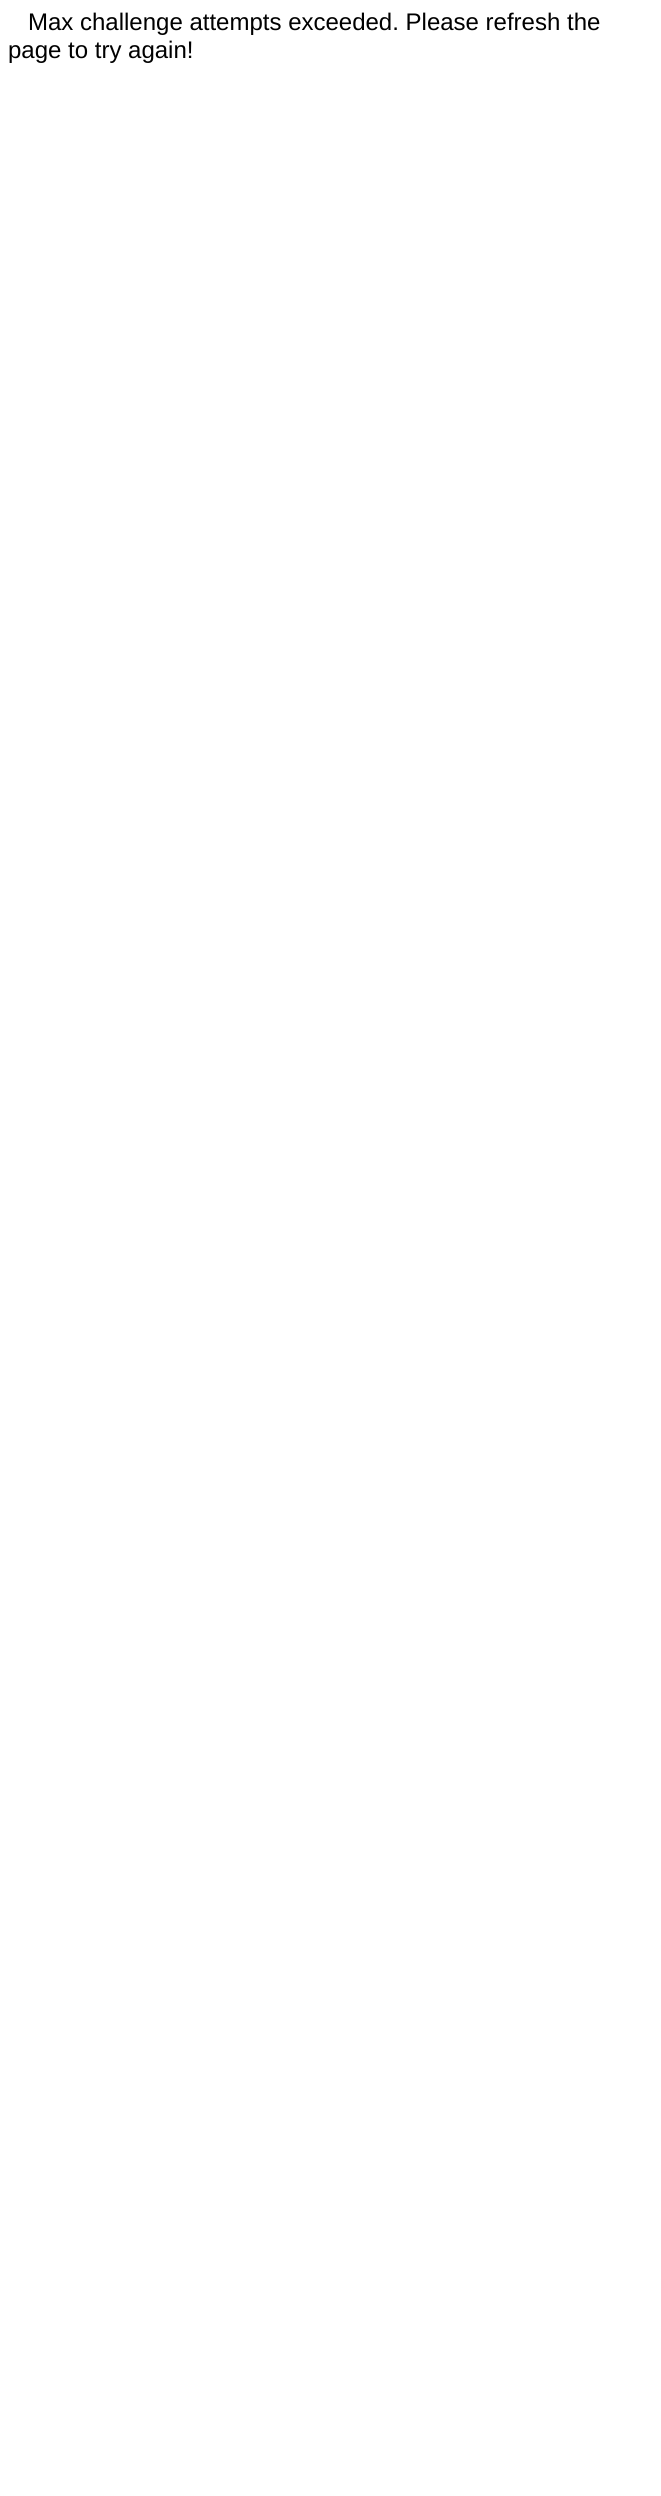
#include <cairo.h>
#include <math.h>
#include <stddef.h>


static void set_color(cairo_t *cr, unsigned color) {
    cairo_set_source_rgb(cr, (color >> 16) / 255.0, (color >> 8 & 255) / 255.0, (color & 255) / 255.0);
}

static void draw_text(cairo_t *cr, double x, double y, const char *s, const char *family, double size, int italic, int bold, unsigned color) {
    cairo_select_font_face(cr, family, italic ? CAIRO_FONT_SLANT_ITALIC : CAIRO_FONT_SLANT_NORMAL,
        bold ? CAIRO_FONT_WEIGHT_BOLD : CAIRO_FONT_WEIGHT_NORMAL);
    cairo_set_font_size(cr, size);
    set_color(cr, color);
    cairo_move_to(cr, x, y);
    cairo_show_text(cr, s);
}

int main(void) {
    cairo_surface_t *surface = cairo_image_surface_create(CAIRO_FORMAT_RGB24, 661, 2496);
    cairo_t *cr = cairo_create(surface);
    cairo_font_options_t *options = cairo_font_options_create();
    cairo_font_options_set_hint_metrics(options, CAIRO_HINT_METRICS_OFF);
    cairo_font_options_set_hint_style(options, CAIRO_HINT_STYLE_NONE);
    cairo_set_font_options(cr, options);
    cairo_set_miter_limit(cr, 4);
    set_color(cr, 0xFFFFFF);
    cairo_paint(cr);
    draw_text(cr, 28, 30, "Max challenge attempts exceeded. Please refresh the", "Liberation Sans", 24, 0, 0, 0x000000);
    draw_text(cr, 8, 58, "page to try again!", "Liberation Sans", 24, 0, 0, 0x000000);
    cairo_surface_write_to_png(surface, "output.png");
    cairo_font_options_destroy(options);
    cairo_destroy(cr);
    cairo_surface_destroy(surface);
    return 0;
}
